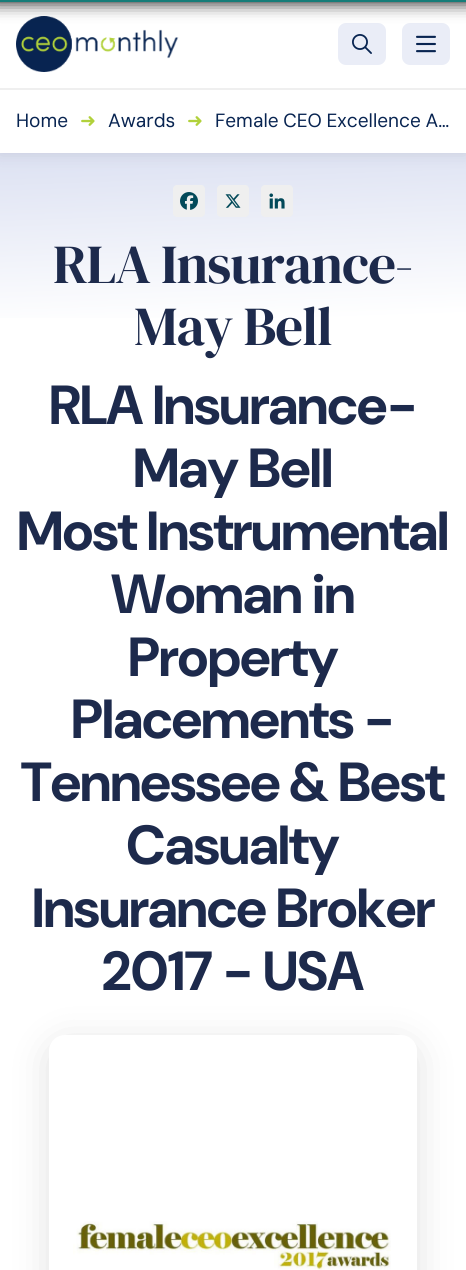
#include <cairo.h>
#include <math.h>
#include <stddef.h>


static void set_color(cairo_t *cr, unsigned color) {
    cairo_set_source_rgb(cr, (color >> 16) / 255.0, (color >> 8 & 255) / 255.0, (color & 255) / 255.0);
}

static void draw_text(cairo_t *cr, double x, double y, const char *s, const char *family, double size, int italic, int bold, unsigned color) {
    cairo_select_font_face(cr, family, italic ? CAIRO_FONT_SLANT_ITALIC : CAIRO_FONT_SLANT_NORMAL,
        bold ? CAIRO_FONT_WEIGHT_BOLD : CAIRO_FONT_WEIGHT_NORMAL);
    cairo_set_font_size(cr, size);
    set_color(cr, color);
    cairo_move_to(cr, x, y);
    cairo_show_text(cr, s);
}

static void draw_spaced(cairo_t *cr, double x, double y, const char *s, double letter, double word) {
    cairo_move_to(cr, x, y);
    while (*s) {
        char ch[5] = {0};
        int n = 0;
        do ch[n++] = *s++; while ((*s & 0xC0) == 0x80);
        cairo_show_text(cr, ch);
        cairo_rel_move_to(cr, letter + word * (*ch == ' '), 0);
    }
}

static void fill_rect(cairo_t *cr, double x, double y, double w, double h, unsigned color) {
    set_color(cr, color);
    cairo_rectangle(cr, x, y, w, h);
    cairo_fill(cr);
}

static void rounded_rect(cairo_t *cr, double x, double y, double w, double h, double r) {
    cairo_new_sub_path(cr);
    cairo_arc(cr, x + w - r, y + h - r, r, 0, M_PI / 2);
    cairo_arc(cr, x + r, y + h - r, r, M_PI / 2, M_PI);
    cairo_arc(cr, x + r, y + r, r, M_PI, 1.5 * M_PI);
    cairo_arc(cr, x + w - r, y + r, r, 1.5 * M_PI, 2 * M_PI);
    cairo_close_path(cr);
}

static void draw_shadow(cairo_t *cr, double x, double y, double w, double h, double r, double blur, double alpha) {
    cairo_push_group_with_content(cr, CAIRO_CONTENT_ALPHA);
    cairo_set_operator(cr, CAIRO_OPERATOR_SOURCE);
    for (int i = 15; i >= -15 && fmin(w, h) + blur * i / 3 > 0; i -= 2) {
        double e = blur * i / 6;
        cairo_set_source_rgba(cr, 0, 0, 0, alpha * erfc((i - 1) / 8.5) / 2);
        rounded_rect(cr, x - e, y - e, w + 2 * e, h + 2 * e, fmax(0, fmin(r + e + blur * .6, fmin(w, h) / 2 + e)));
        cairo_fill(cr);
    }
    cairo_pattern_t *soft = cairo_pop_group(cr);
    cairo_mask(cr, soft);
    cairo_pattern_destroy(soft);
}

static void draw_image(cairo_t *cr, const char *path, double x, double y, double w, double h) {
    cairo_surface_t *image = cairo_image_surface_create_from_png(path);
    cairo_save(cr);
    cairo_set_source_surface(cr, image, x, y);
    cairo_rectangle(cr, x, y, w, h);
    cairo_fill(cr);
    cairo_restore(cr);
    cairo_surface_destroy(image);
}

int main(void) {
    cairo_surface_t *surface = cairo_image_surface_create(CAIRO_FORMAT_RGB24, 466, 1270);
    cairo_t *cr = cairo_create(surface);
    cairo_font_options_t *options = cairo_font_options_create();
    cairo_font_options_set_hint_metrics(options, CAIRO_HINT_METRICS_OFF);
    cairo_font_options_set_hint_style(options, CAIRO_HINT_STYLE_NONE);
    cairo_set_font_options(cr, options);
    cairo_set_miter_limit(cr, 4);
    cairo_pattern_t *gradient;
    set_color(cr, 0xFFFFFF);
    cairo_paint(cr);
    gradient = cairo_pattern_create_linear(222, 73, 242, 641);
    cairo_pattern_add_color_stop_rgba(gradient, 0, 0.808, 0.835, 0.929, 1);
    cairo_pattern_add_color_stop_rgba(gradient, 0.44, 1, 1, 1, 1);
    cairo_set_source(cr, gradient);
    cairo_pattern_destroy(gradient);
    cairo_rectangle(cr, 0, 153, 466, 165);
    cairo_fill(cr);
    set_color(cr, 0x000000);
    draw_shadow(cr, 0, 0, 466, 153, 0, 8, 0.1);
    fill_rect(cr, 0, 2, 466, 151, 0xFFFFFF);
    draw_image(cr, "assets/img1.png", 16, 16, 163, 56);
    set_color(cr, 0xEAEDF7);
    rounded_rect(cr, 338, 23, 48, 42, 8);
    cairo_fill(cr);
    rounded_rect(cr, 402, 23, 48, 42, 8);
    cairo_fill(cr);
    set_color(cr, 0x000000);
    draw_shadow(cr, 0, 0, 466, 2, 0, 8.5, 1);
    fill_rect(cr, 0, 0, 466, 2, 0x167D79);
    fill_rect(cr, 0, 88, 466, 2, 0xEFEFEF);
    draw_image(cr, "assets/img2.png", 352, 34, 20, 20);
    draw_image(cr, "assets/img3.png", 416, 35, 20, 18);
    draw_text(cr, 16, 127, "Home", "DM Sans", 19.1, 0, 0, 0x082451);
    draw_text(cr, 80, 127, "➜", "DejaVu Sans", 19.1, 0, 0, 0xB1D13B);
    draw_text(cr, 108, 127, "Awards", "DM Sans", 19.1, 0, 0, 0x082451);
    draw_text(cr, 187, 127, "➜", "DejaVu Sans", 19.1, 0, 0, 0xB1D13B);
    cairo_select_font_face(cr, "DM Sans", CAIRO_FONT_SLANT_NORMAL, CAIRO_FONT_WEIGHT_NORMAL);
    set_color(cr, 0x082451);
    draw_spaced(cr, 215, 127, "Female CEO Excellence A…", 0, -0.5);
    set_color(cr, 0xEFEFEF);
    rounded_rect(cr, 173, 185, 32, 32, 4);
    cairo_fill(cr);
    draw_image(cr, "assets/img4.png", 180, 192, 18, 18);
    rounded_rect(cr, 217, 185, 32, 32, 4);
    cairo_fill(cr);
    draw_image(cr, "assets/img5.png", 225, 194, 16, 14);
    rounded_rect(cr, 261, 185, 32, 32, 4);
    cairo_fill(cr);
    draw_image(cr, "assets/img6.png", 269, 193, 16, 16);
    cairo_select_font_face(cr, "DM Serif Display", CAIRO_FONT_SLANT_NORMAL, CAIRO_FONT_WEIGHT_NORMAL);
    cairo_set_font_size(cr, 55);
    set_color(cr, 0x1D2A4C);
    draw_spaced(cr, 53, 283, "RLA Insurance-", -1, 0);
    draw_spaced(cr, 134, 345, "May Bell", -1, 0);
    cairo_select_font_face(cr, "DM Sans", CAIRO_FONT_SLANT_NORMAL, CAIRO_FONT_WEIGHT_BOLD);
    draw_spaced(cr, 49, 424, "RLA Insurance-", -1, 0);
    draw_spaced(cr, 133, 487, "May Bell", -1, 0);
    draw_spaced(cr, 17, 550, "Most Instrumental", -1, 0);
    draw_spaced(cr, 111, 613, "Woman in", -1, 0);
    draw_spaced(cr, 128, 676, "Property", -1, 0);
    draw_spaced(cr, 71, 738, "Placements -", -1, 0);
    draw_spaced(cr, 21, 801, "Tennessee & Best", -1, 0);
    draw_spaced(cr, 126, 864, "Casualty", -1, 0);
    draw_spaced(cr, 32, 927, "Insurance Broker", -1, 0);
    draw_spaced(cr, 102, 990, "2017 - USA", -1, 0);
    set_color(cr, 0x000000);
    draw_shadow(cr, 49, 1043, 368, 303, 16, 20, 0.12);
    set_color(cr, 0xFFFFFF);
    rounded_rect(cr, 49, 1035, 368, 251, 16);
    cairo_fill(cr);
    draw_image(cr, "assets/img7.png", 73, 1221, 318, 49);
    cairo_surface_write_to_png(surface, "output.png");
    cairo_font_options_destroy(options);
    cairo_destroy(cr);
    cairo_surface_destroy(surface);
    return 0;
}
